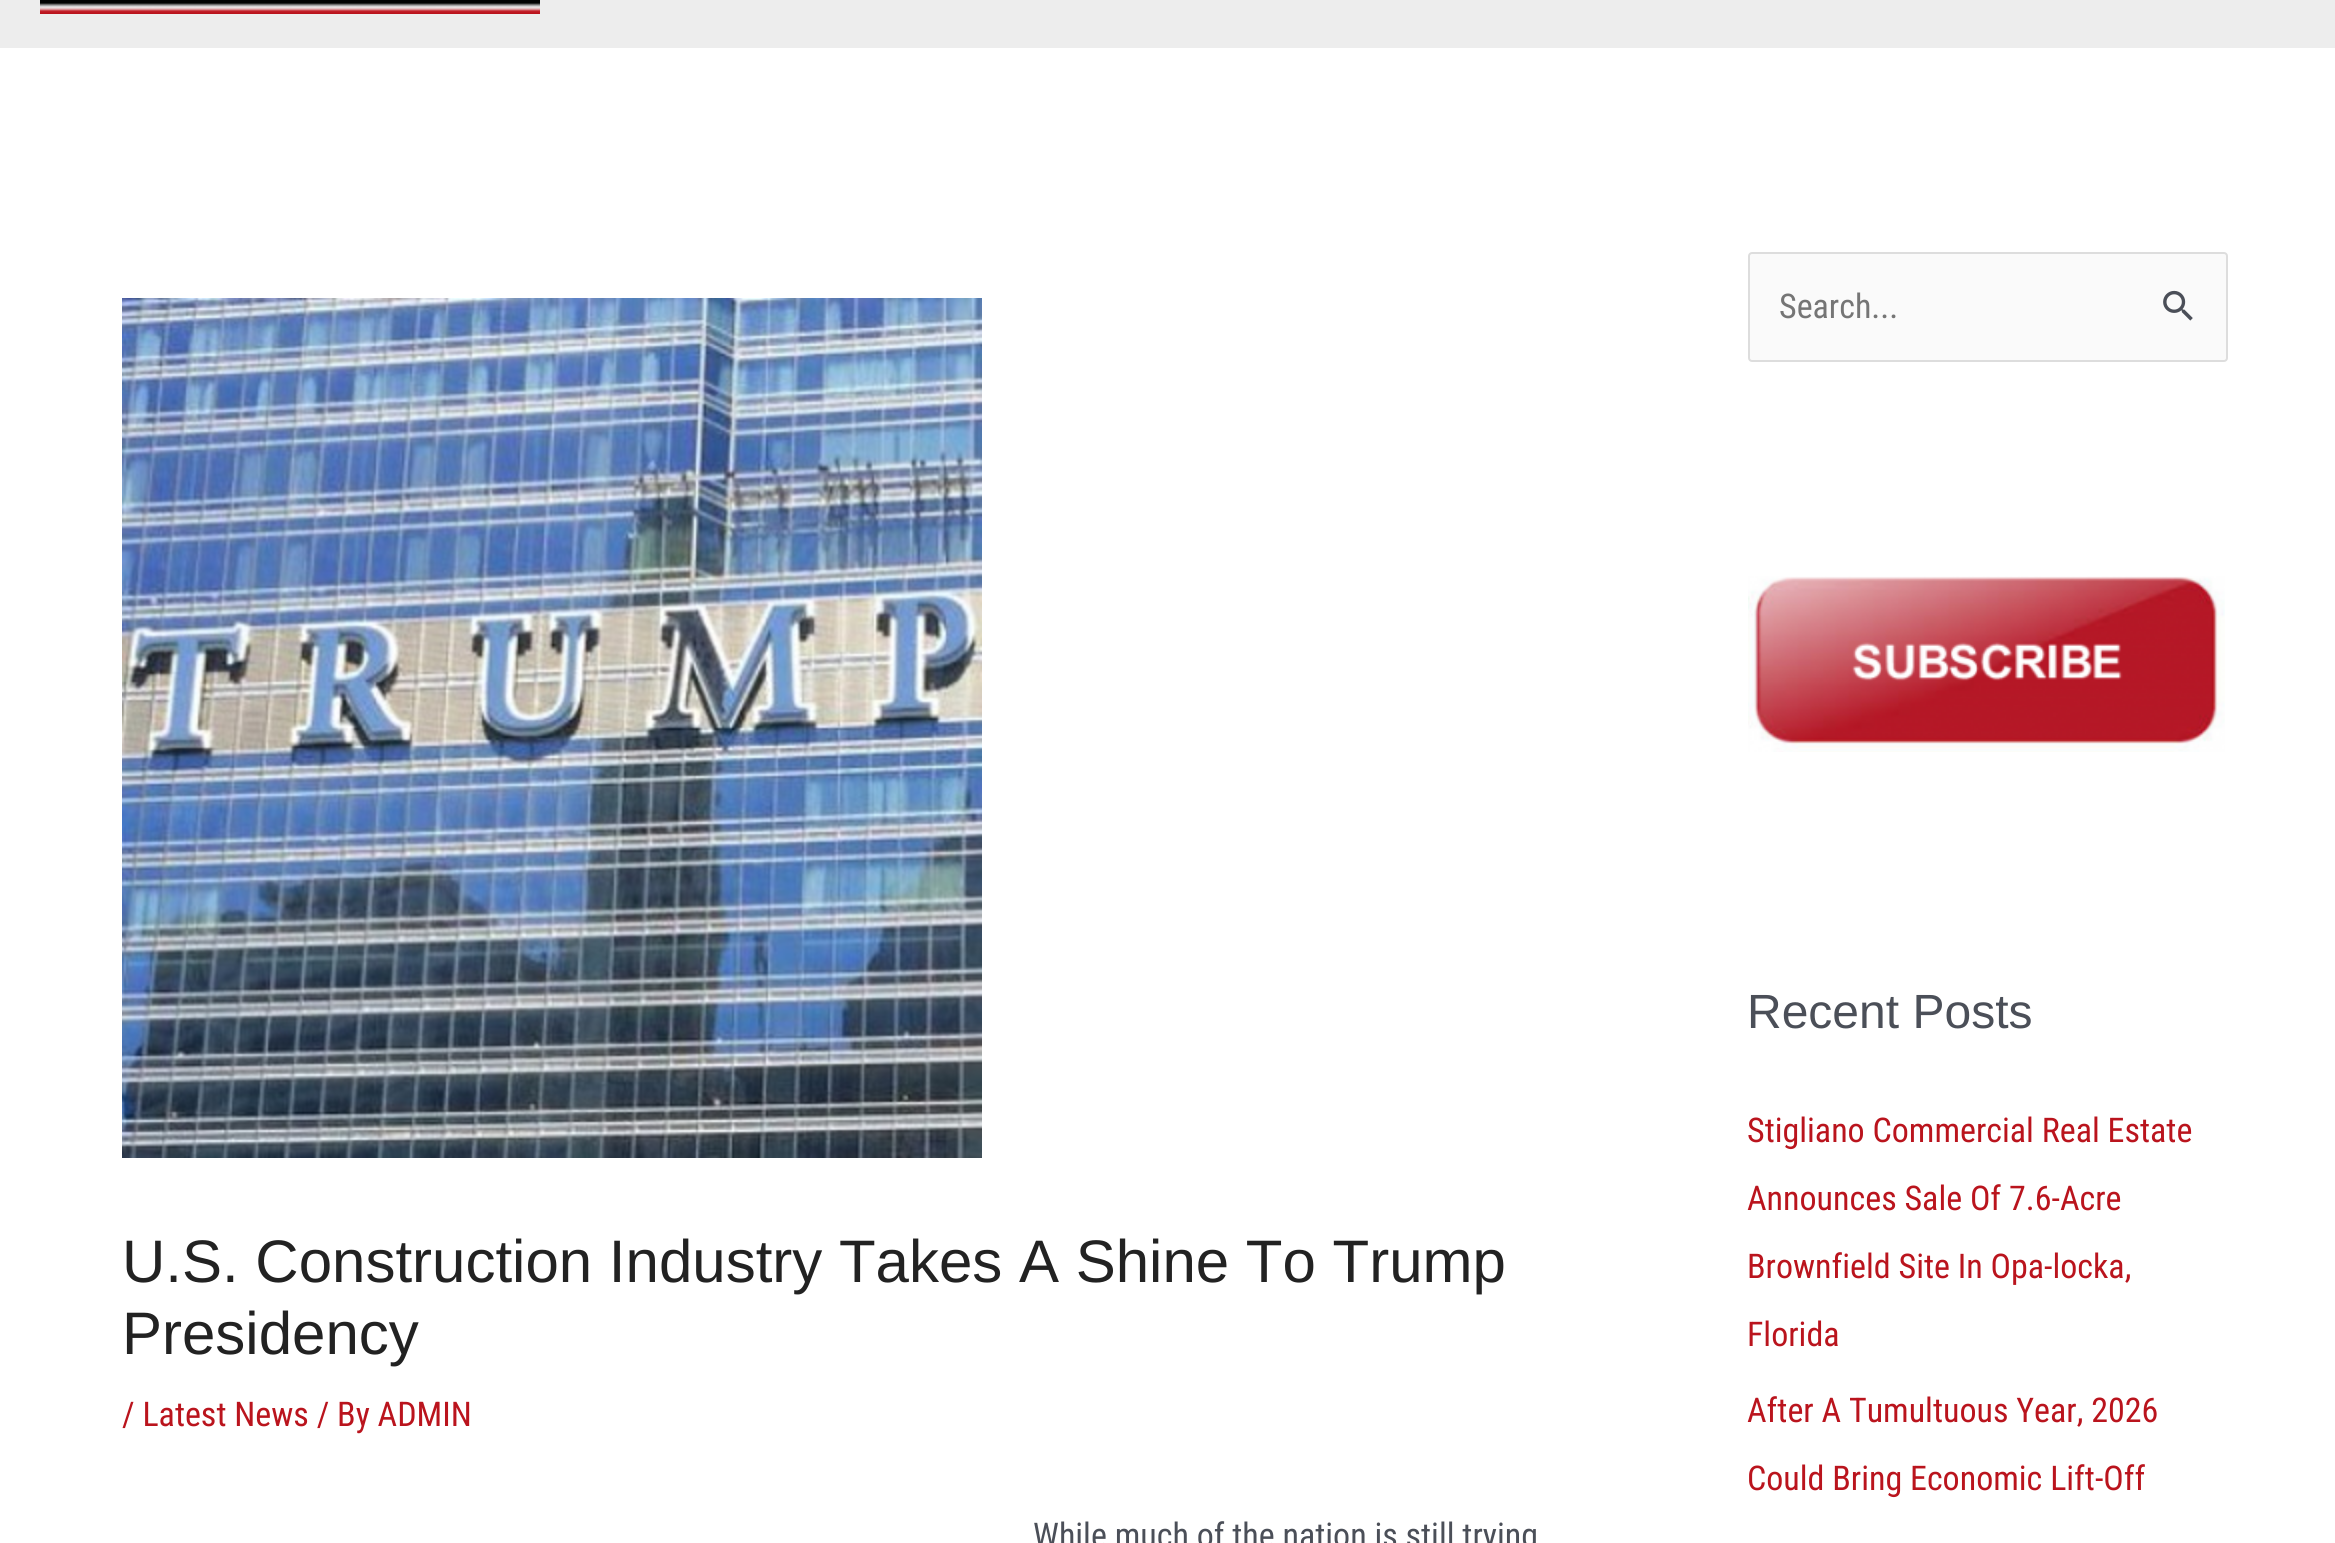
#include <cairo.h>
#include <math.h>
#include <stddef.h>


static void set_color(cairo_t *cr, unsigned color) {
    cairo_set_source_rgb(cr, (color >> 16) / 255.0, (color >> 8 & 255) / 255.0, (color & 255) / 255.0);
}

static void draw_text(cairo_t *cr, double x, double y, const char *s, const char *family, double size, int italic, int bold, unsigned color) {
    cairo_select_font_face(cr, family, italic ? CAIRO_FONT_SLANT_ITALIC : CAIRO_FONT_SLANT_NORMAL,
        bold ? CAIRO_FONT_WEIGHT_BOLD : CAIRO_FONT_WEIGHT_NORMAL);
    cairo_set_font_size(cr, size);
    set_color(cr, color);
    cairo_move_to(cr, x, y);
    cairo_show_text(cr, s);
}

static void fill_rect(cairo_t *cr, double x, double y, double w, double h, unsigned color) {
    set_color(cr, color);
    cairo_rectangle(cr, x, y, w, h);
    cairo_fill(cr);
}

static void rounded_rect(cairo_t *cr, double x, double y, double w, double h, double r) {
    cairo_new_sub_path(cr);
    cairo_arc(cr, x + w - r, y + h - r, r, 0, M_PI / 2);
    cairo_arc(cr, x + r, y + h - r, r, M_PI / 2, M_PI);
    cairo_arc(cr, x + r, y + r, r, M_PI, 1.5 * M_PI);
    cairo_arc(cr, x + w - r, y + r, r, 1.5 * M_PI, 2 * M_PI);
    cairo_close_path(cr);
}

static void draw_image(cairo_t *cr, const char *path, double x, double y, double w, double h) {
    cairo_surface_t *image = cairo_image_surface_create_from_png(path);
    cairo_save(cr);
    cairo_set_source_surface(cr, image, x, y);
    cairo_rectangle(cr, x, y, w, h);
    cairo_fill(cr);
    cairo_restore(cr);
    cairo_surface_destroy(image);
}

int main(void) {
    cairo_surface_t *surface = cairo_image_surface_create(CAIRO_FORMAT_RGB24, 2335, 1543);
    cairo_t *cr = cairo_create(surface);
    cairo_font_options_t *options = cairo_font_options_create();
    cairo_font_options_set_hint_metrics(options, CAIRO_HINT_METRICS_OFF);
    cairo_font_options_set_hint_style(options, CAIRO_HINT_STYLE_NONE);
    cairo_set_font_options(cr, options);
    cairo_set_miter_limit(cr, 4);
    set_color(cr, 0xFFFFFF);
    cairo_paint(cr);
    fill_rect(cr, 0, 0, 2335, 48, 0xEDEDED);
    draw_image(cr, "assets/img1.png", 40, 0, 500, 14);
    draw_image(cr, "assets/img2.png", 122, 298, 860, 860);
    draw_text(cr, 122, 1282, "U.S. Construction Industry Takes A Shine To Trump", "Liberation Sans", 60, 0, 0, 0x222222);
    draw_text(cr, 122, 1354, "Presidency", "Liberation Sans", 60, 0, 0, 0x222222);
    draw_text(cr, 122, 1426, "/ Latest News / By ADMIN", "Roboto Condensed", 34, 0, 0, 0xBA141D);
    draw_text(cr, 1033, 1547, "While much of the nation is still trying", "Roboto Condensed", 34, 0, 0, 0x4B4F58);
    set_color(cr, 0xFAFAFA);
    rounded_rect(cr, 1749, 253, 478, 108, 3);
    cairo_fill_preserve(cr);
    set_color(cr, 0xDDDDDD);
    cairo_stroke(cr);
    draw_text(cr, 1779, 318, "Search...", "Roboto Condensed", 34, 0, 0, 0x757575);
    draw_image(cr, "assets/img3.png", 2163, 290, 30, 31);
    draw_image(cr, "assets/img4.png", 1748, 576, 477, 176);
    draw_text(cr, 1747, 1028, "Recent Posts", "Liberation Sans", 48, 0, 0, 0x4B4F58);
    draw_text(cr, 1747, 1142, "Stigliano Commercial Real Estate", "Roboto Condensed", 34, 0, 0, 0xBA141D);
    draw_text(cr, 1747, 1210, "Announces Sale Of 7.6-Acre", "Roboto Condensed", 34, 0, 0, 0xBA141D);
    draw_text(cr, 1747, 1278, "Brownfield Site In Opa-locka,", "Roboto Condensed", 34, 0, 0, 0xBA141D);
    draw_text(cr, 1747, 1346, "Florida", "Roboto Condensed", 34, 0, 0, 0xBA141D);
    draw_text(cr, 1747, 1422, "After A Tumultuous Year, 2026", "Roboto Condensed", 34, 0, 0, 0xBA141D);
    draw_text(cr, 1747, 1490, "Could Bring Economic Lift-Off", "Roboto Condensed", 34, 0, 0, 0xBA141D);
    cairo_surface_write_to_png(surface, "output.png");
    cairo_font_options_destroy(options);
    cairo_destroy(cr);
    cairo_surface_destroy(surface);
    return 0;
}
